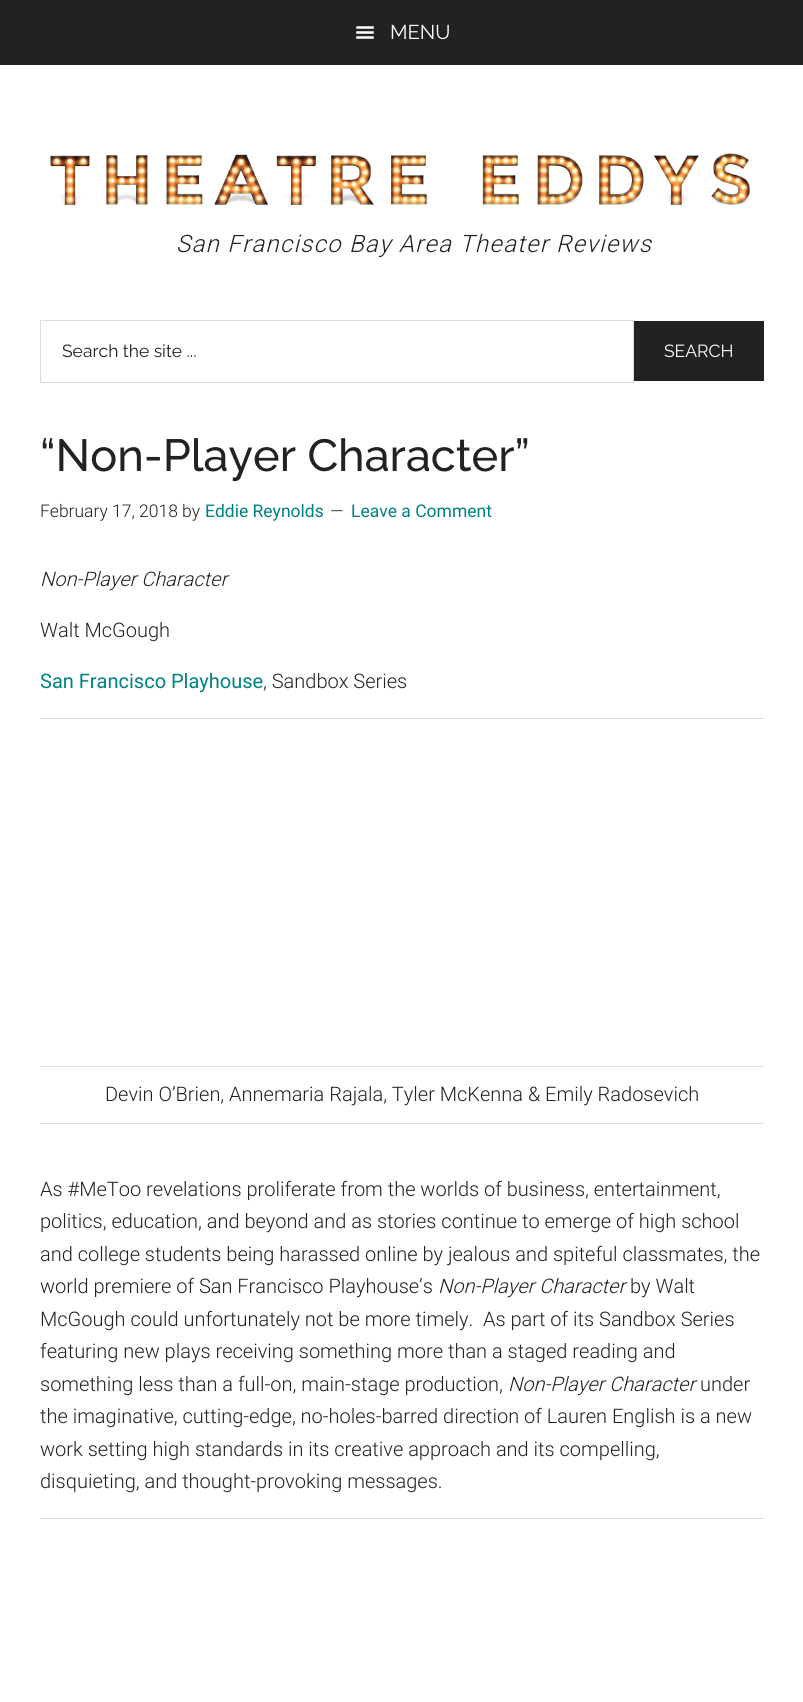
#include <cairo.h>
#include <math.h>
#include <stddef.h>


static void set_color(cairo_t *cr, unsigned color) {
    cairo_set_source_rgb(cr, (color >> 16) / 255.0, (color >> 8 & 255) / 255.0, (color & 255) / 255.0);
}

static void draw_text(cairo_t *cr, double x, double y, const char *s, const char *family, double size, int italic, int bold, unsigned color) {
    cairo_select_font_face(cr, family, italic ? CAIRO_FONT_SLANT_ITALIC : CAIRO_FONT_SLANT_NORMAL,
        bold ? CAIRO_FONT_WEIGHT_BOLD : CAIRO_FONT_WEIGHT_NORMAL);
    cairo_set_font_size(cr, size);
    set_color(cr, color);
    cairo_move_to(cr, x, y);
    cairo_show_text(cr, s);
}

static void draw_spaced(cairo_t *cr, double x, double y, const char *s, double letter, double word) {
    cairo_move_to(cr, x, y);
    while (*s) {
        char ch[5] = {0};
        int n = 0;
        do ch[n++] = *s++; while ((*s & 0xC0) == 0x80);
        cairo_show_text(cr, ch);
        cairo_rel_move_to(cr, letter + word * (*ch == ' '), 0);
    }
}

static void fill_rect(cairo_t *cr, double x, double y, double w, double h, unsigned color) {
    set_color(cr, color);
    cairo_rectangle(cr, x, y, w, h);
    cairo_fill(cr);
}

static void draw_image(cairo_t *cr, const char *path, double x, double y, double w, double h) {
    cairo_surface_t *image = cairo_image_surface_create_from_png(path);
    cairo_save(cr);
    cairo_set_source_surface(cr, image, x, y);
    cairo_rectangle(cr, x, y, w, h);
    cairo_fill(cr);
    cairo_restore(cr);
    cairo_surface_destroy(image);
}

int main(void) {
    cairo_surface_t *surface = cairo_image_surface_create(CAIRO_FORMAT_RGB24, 803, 1702);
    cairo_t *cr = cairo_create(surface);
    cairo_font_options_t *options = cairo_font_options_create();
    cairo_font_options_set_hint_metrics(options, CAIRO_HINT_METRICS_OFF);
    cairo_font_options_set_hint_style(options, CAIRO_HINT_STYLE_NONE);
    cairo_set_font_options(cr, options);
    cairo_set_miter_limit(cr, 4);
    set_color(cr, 0xFFFFFF);
    cairo_paint(cr);
    fill_rect(cr, 0, 0, 803, 65, 0x222222);
    draw_image(cr, "assets/img1.png", 356, 26, 18, 13);
    draw_text(cr, 390, 39, "MENU", "Raleway", 20, 0, 0, 0xFFFFFF);
    draw_image(cr, "assets/img2.png", 50, 153, 700, 53);
    cairo_select_font_face(cr, "Roboto Light", CAIRO_FONT_SLANT_ITALIC, CAIRO_FONT_WEIGHT_NORMAL);
    cairo_set_font_size(cr, 24);
    set_color(cr, 0x222222);
    draw_spaced(cr, 176, 252, "San Francisco Bay Area Theater Reviews", 1.25, 0);
    cairo_rectangle(cr, 40.5, 320.5, 593, 62);
    set_color(cr, 0xDDDDDD);
    cairo_set_line_width(cr, 1);
    cairo_stroke(cr);
    draw_text(cr, 62, 357, "Search the site ...", "Raleway", 17.5, 0, 0, 0x222222);
    fill_rect(cr, 634, 321, 130, 60, 0x222222);
    draw_text(cr, 664, 357, "SEARCH", "Raleway", 17.5, 0, 0, 0xFFFFFF);
    draw_text(cr, 40, 471, "“Non-Player Character”", "Raleway Medium", 45, 0, 0, 0x222222);
    draw_text(cr, 40, 517, "February 17, 2018 by", "Roboto Light", 17.5, 0, 0, 0x222222);
    draw_text(cr, 205, 517, "Eddie Reynolds", "Roboto", 17.5, 0, 0, 0x008285);
    draw_text(cr, 330, 517, "—", "Roboto Light", 17.5, 0, 0, 0x222222);
    draw_text(cr, 351, 517, "Leave a Comment", "Roboto", 17.5, 0, 0, 0x008285);
    draw_text(cr, 40, 586, "Non-Player Character", "Roboto Light", 20, 1, 0, 0x222222);
    draw_text(cr, 40, 637, "Walt McGough", "Roboto Light", 20, 0, 0, 0x222222);
    draw_text(cr, 40, 688, "San Francisco Playhouse", "Roboto", 20, 0, 0, 0x008285);
    draw_text(cr, 263, 688, ", Sandbox Series", "Roboto Light", 20, 0, 0, 0x222222);
    fill_rect(cr, 40, 1123, 724, 1, 0xDDDDDD);
    fill_rect(cr, 40, 718, 724, 1, 0xDDDDDD);
    fill_rect(cr, 40, 1066, 724, 1, 0xDDDDDD);
    draw_text(cr, 105, 1101, "Devin O’Brien, Annemaria Rajala, Tyler McKenna & Emily Radosevich", "Roboto Light", 20, 0, 0, 0x222222);
    draw_text(cr, 40, 1196, "As #MeToo revelations proliferate from the worlds of business, entertainment,", "Roboto Light", 20, 0, 0, 0x222222);
    draw_text(cr, 40, 1228, "politics, education, and beyond and as stories continue to emerge of high school", "Roboto Light", 20, 0, 0, 0x222222);
    draw_text(cr, 40, 1261, "and college students being harassed online by jealous and spiteful classmates, the", "Roboto Light", 20, 0, 0, 0x222222);
    draw_text(cr, 40, 1293, "world premiere of San Francisco Playhouse’s", "Roboto Light", 20, 0, 0, 0x222222);
    draw_text(cr, 438, 1293, "Non-Player Character", "Roboto Light", 20, 1, 0, 0x222222);
    draw_text(cr, 630, 1293, "by Walt", "Roboto Light", 20, 0, 0, 0x222222);
    draw_text(cr, 40, 1326, "McGough could unfortunately not be more timely.", "Roboto Light", 20, 0, 0, 0x222222);
    draw_text(cr, 483, 1326, "As part of its Sandbox Series", "Roboto Light", 20, 0, 0, 0x222222);
    draw_text(cr, 40, 1358, "featuring new plays receiving something more than a staged reading and", "Roboto Light", 20, 0, 0, 0x222222);
    draw_text(cr, 40, 1391, "something less than a full-on, main-stage production,", "Roboto Light", 20, 0, 0, 0x222222);
    draw_text(cr, 508, 1391, "Non-Player Character", "Roboto Light", 20, 1, 0, 0x222222);
    draw_text(cr, 700, 1391, "under", "Roboto Light", 20, 0, 0, 0x222222);
    draw_text(cr, 40, 1423, "the imaginative, cutting-edge, no-holes-barred direction of Lauren English is a new", "Roboto Light", 20, 0, 0, 0x222222);
    draw_text(cr, 40, 1456, "work setting high standards in its creative approach and its compelling,", "Roboto Light", 20, 0, 0, 0x222222);
    draw_text(cr, 40, 1488, "disquieting, and thought-provoking messages.", "Roboto Light", 20, 0, 0, 0x222222);
    fill_rect(cr, 40, 1518, 724, 1, 0xDDDDDD);
    cairo_surface_write_to_png(surface, "output.png");
    cairo_font_options_destroy(options);
    cairo_destroy(cr);
    cairo_surface_destroy(surface);
    return 0;
}
